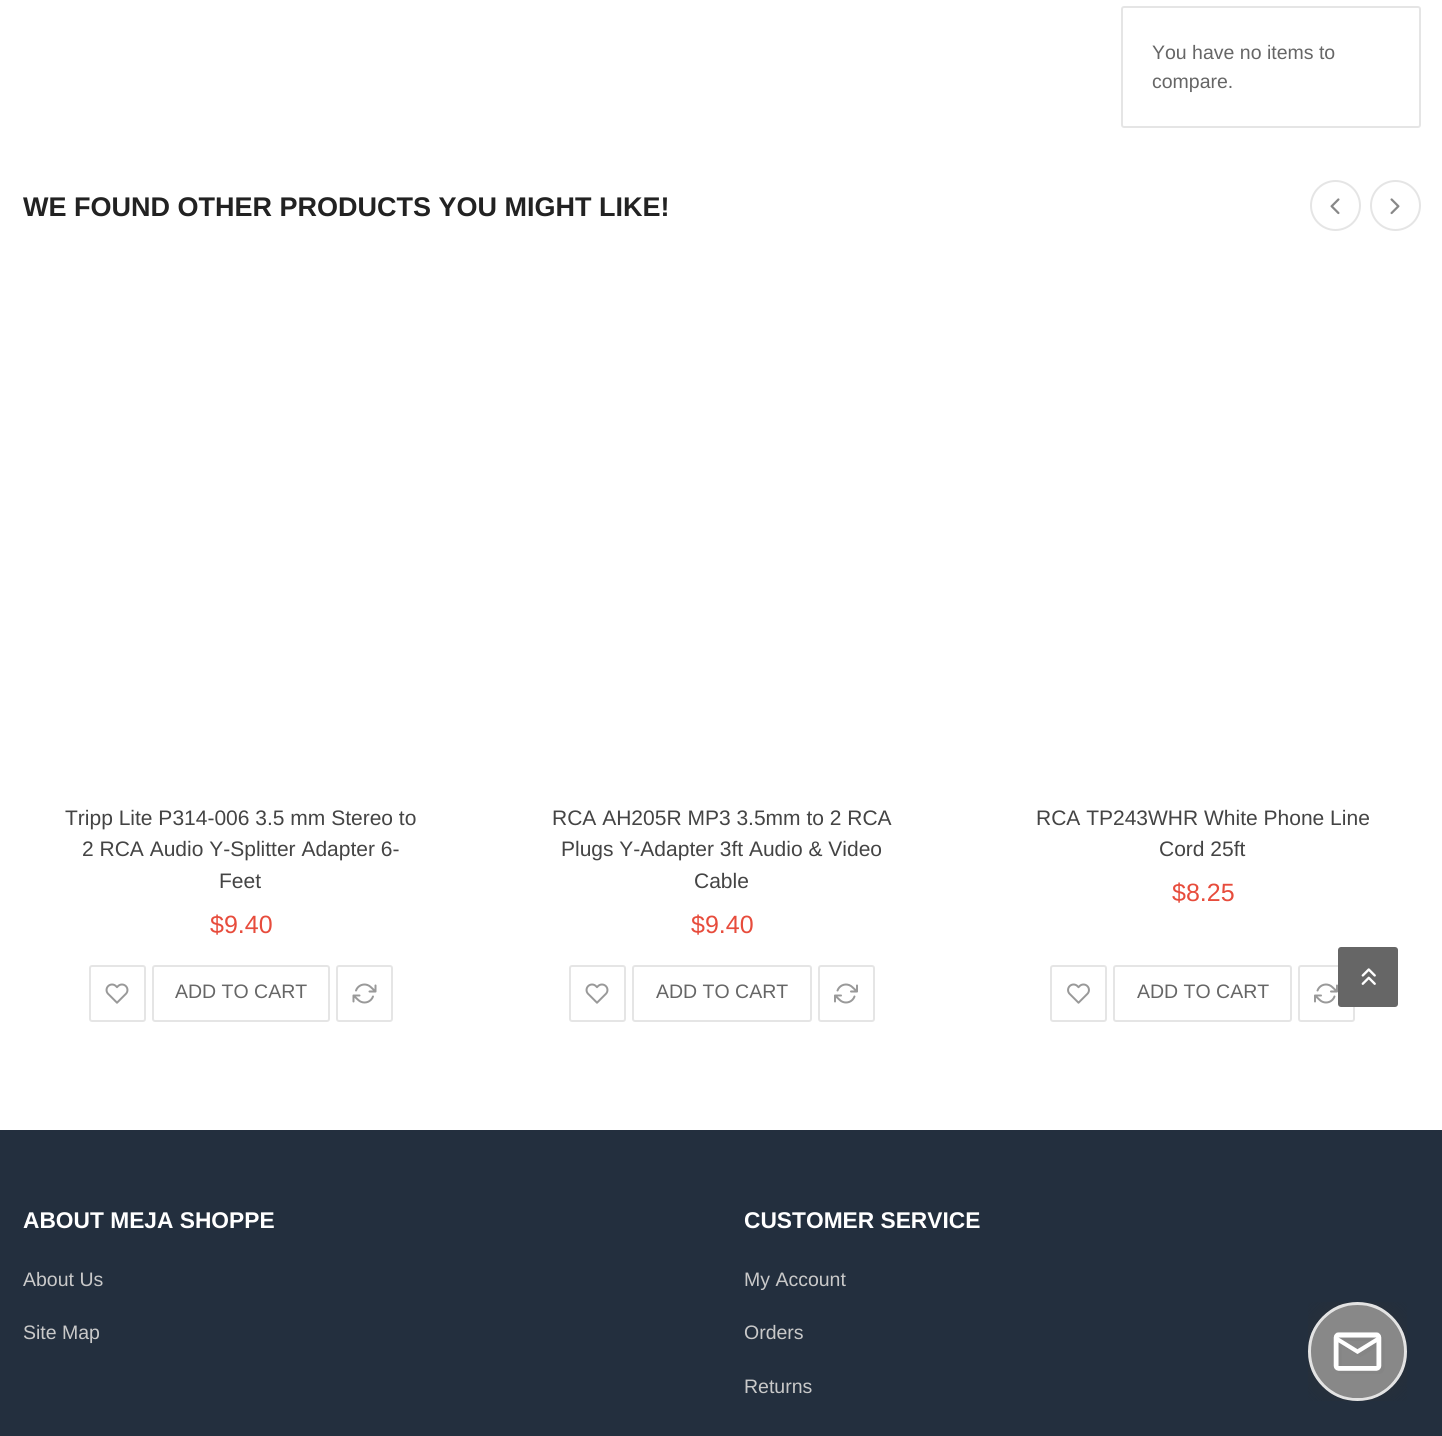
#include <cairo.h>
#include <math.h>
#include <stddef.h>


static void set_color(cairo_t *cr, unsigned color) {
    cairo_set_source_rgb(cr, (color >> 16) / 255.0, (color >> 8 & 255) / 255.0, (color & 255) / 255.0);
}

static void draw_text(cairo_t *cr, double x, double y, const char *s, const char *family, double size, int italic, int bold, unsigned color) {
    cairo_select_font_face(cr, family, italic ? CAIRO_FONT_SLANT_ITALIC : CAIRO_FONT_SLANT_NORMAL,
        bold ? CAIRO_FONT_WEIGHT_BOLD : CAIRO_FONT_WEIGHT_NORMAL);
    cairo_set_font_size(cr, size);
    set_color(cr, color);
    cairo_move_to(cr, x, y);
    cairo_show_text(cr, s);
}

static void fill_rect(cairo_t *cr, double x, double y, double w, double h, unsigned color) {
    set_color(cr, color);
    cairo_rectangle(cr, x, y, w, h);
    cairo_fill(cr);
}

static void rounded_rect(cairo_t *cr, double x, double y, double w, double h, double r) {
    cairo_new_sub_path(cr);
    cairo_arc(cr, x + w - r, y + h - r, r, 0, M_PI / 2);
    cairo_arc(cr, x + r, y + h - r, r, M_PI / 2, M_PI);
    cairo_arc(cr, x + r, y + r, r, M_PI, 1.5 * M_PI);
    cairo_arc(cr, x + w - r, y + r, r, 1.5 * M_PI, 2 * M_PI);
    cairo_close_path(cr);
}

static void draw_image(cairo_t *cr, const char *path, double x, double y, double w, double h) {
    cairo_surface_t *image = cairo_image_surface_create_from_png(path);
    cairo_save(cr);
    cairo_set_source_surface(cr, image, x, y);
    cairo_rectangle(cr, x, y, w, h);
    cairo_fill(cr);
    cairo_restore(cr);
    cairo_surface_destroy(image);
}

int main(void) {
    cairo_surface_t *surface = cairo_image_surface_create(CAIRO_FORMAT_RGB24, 1442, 1436);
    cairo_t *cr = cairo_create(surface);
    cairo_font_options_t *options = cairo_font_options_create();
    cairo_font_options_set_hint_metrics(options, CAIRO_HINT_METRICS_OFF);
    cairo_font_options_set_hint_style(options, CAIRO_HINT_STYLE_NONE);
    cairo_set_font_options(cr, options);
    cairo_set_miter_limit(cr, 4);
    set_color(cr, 0xFFFFFF);
    cairo_paint(cr);
    rounded_rect(cr, 1122, 7, 298, 120, 2);
    set_color(cr, 0xE5E5E5);
    cairo_stroke(cr);
    draw_text(cr, 1152, 59, "You have no items to", "Liberation Sans", 19.5, 0, 0, 0x666666);
    draw_text(cr, 1152, 88, "compare.", "Liberation Sans", 19.5, 0, 0, 0x666666);
    draw_text(cr, 23, 216, "WE FOUND OTHER PRODUCTS YOU MIGHT LIKE!", "Liberation Sans", 27, 0, 1, 0x222222);
    cairo_new_path(cr);
    cairo_arc(cr, 1335.5, 205.5, 24.5, 0, 2 * M_PI);
    set_color(cr, 0xE5E5E5);
    cairo_stroke(cr);
    draw_image(cr, "assets/img1.png", 1330, 198, 10, 17);
    cairo_arc(cr, 1395.5, 205.5, 24.5, 0, 2 * M_PI);
    cairo_stroke(cr);
    draw_image(cr, "assets/img2.png", 1390, 198, 10, 17);
    draw_text(cr, 65, 825, "Tripp Lite P314-006 3.5 mm Stereo to", "Liberation Sans", 21, 0, 0, 0x444444);
    draw_text(cr, 82, 856, "2 RCA Audio Y-Splitter Adapter 6-", "Liberation Sans", 21, 0, 0, 0x444444);
    draw_text(cr, 219, 888, "Feet", "Liberation Sans", 21, 0, 0, 0x444444);
    draw_text(cr, 210, 933, "$9.40", "Liberation Sans", 25, 0, 0, 0xE74C3C);
    rounded_rect(cr, 90, 966, 55, 55, 2);
    set_color(cr, 0xE5E5E5);
    cairo_stroke(cr);
    draw_image(cr, "assets/img3.png", 105, 983, 24, 21);
    rounded_rect(cr, 337, 966, 55, 55, 2);
    cairo_stroke(cr);
    draw_image(cr, "assets/img4.png", 352, 983, 25, 21);
    rounded_rect(cr, 153, 966, 176, 55, 2);
    cairo_stroke(cr);
    draw_text(cr, 175, 998, "ADD TO CART", "Liberation Sans", 19.5, 0, 0, 0x666666);
    draw_text(cr, 552, 825, "RCA AH205R MP3 3.5mm to 2 RCA", "Liberation Sans", 21, 0, 0, 0x444444);
    draw_text(cr, 561, 856, "Plugs Y-Adapter 3ft Audio & Video", "Liberation Sans", 21, 0, 0, 0x444444);
    draw_text(cr, 694, 888, "Cable", "Liberation Sans", 21, 0, 0, 0x444444);
    draw_text(cr, 691, 933, "$9.40", "Liberation Sans", 25, 0, 0, 0xE74C3C);
    rounded_rect(cr, 570, 966, 55, 55, 2);
    set_color(cr, 0xE5E5E5);
    cairo_stroke(cr);
    draw_image(cr, "assets/img3.png", 585, 983, 24, 21);
    rounded_rect(cr, 819, 966, 55, 55, 2);
    cairo_stroke(cr);
    draw_image(cr, "assets/img5.png", 834, 983, 24, 21);
    rounded_rect(cr, 633, 966, 178, 55, 2);
    cairo_stroke(cr);
    draw_text(cr, 656, 998, "ADD TO CART", "Liberation Sans", 19.5, 0, 0, 0x666666);
    draw_text(cr, 1036, 825, "RCA TP243WHR White Phone Line", "Liberation Sans", 21, 0, 0, 0x444444);
    draw_text(cr, 1159, 856, "Cord 25ft", "Liberation Sans", 21, 0, 0, 0x444444);
    draw_text(cr, 1172, 901, "$8.25", "Liberation Sans", 25, 0, 0, 0xE74C3C);
    rounded_rect(cr, 1051, 966, 55, 55, 2);
    set_color(cr, 0xE5E5E5);
    cairo_stroke(cr);
    draw_image(cr, "assets/img6.png", 1067, 983, 23, 21);
    rounded_rect(cr, 1299, 966, 55, 55, 2);
    cairo_stroke(cr);
    draw_image(cr, "assets/img5.png", 1314, 983, 24, 21);
    rounded_rect(cr, 1114, 966, 177, 55, 2);
    cairo_stroke(cr);
    draw_text(cr, 1137, 998, "ADD TO CART", "Liberation Sans", 19.5, 0, 0, 0x666666);
    rounded_rect(cr, 1338, 947, 60, 60, 3);
    cairo_fill(cr);
    draw_image(cr, "assets/img7.png", 1361, 968, 15, 17);
    fill_rect(cr, 0, 1130, 1442, 306, 0x232F3E);
    draw_text(cr, 23, 1228, "ABOUT MEJA SHOPPE", "Liberation Sans", 22.75, 0, 1, 0xFFFFFF);
    draw_text(cr, 23, 1286, "About Us", "Liberation Sans", 19.5, 0, 0, 0xC9C9C9);
    draw_text(cr, 23, 1339, "Site Map", "Liberation Sans", 19.5, 0, 0, 0xC9C9C9);
    draw_text(cr, 744, 1228, "CUSTOMER SERVICE", "Liberation Sans", 22.75, 0, 1, 0xFFFFFF);
    draw_text(cr, 744, 1286, "My Account", "Liberation Sans", 19.5, 0, 0, 0xC9C9C9);
    draw_text(cr, 744, 1339, "Orders", "Liberation Sans", 19.5, 0, 0, 0xC9C9C9);
    draw_text(cr, 744, 1393, "Returns", "Liberation Sans", 19.5, 0, 0, 0xC9C9C9);
    draw_image(cr, "assets/img8.png", 1308, 1302, 99, 99);
    cairo_surface_write_to_png(surface, "output.png");
    cairo_font_options_destroy(options);
    cairo_destroy(cr);
    cairo_surface_destroy(surface);
    return 0;
}
